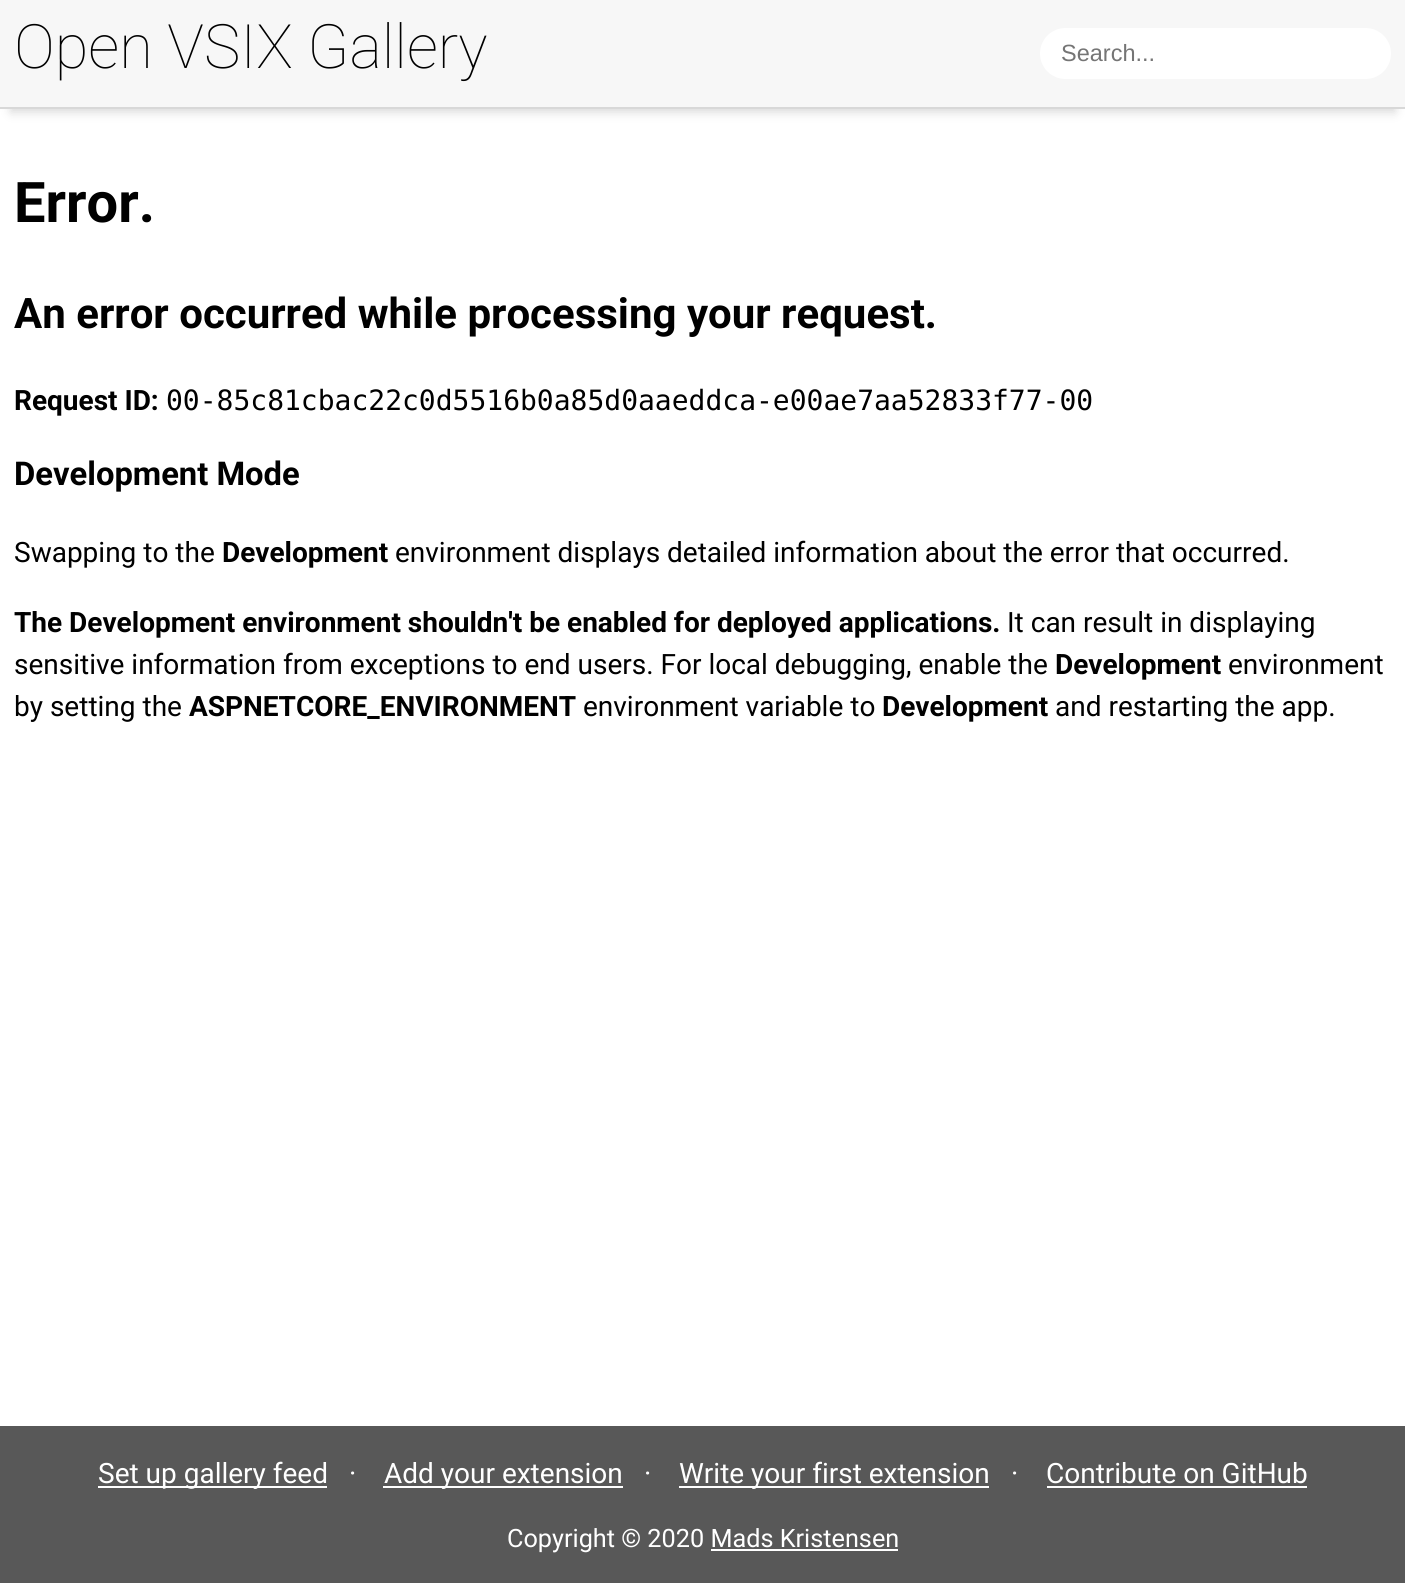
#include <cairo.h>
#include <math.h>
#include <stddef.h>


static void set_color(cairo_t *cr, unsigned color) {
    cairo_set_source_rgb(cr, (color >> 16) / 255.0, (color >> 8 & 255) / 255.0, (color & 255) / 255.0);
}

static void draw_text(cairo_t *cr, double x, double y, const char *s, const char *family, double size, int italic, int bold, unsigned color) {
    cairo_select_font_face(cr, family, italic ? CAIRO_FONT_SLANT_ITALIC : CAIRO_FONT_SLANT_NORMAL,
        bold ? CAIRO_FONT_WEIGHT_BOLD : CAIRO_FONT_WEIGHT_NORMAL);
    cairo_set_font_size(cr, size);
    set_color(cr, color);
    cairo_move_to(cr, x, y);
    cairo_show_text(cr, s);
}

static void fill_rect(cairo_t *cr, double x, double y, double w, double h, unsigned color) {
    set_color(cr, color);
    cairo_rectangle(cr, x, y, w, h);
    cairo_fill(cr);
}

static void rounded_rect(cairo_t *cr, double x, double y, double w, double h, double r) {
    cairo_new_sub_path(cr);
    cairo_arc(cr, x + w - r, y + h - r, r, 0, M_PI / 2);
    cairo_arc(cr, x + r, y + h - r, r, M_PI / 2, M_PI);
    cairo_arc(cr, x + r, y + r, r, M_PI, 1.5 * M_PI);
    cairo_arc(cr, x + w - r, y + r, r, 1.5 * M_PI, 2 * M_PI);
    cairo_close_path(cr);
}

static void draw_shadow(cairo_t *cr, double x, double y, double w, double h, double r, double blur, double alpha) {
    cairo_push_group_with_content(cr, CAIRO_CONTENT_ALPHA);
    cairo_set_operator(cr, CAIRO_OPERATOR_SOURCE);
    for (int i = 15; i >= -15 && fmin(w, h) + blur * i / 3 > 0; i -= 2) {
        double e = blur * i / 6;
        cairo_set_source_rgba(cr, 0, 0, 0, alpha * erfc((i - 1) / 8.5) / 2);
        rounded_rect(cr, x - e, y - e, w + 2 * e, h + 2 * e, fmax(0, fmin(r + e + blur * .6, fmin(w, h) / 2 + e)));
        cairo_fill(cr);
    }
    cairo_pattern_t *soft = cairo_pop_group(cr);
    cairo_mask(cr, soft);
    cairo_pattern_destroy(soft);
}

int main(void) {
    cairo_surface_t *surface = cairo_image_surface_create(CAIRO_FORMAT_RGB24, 1405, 1583);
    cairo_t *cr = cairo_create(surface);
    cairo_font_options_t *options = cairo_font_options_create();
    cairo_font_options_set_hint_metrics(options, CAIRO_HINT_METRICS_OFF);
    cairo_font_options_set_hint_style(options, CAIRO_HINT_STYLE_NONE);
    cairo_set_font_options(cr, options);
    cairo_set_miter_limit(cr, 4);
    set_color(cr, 0xFFFFFF);
    cairo_paint(cr);
    set_color(cr, 0xD8D8D8);
    draw_shadow(cr, 11, 25, 1384, 87, 0, 5, 1);
    fill_rect(cr, 0, 0, 1405, 107, 0xF7F7F7);
    fill_rect(cr, 0, 107, 1405, 2, 0xD8D8D8);
    draw_text(cr, 14, 68, "Open VSIX Gallery", "Roboto Thin", 61.25, 0, 0, 0x000000);
    set_color(cr, 0xFFFFFF);
    rounded_rect(cr, 1040, 28, 351, 51, 25.5);
    cairo_fill(cr);
    draw_text(cr, 1061, 61, "Search...", "Liberation Sans", 23.5, 0, 0, 0x757575);
    draw_text(cr, 14, 222, "Error.", "Roboto", 56, 0, 1, 0x000000);
    draw_text(cr, 14, 328, "An error occurred while processing your request.", "Roboto", 42, 0, 1, 0x000000);
    draw_text(cr, 14, 410, "Request ID:", "Roboto", 28, 0, 1, 0x000000);
    draw_text(cr, 166, 410, "00-85c81cbac22c0d5516b0a85d0aaeddca-e00ae7aa52833f77-00", "DejaVu Sans Mono", 28, 0, 0, 0x000000);
    draw_text(cr, 14, 485, "Development Mode", "Roboto", 32.75, 0, 1, 0x000000);
    draw_text(cr, 14, 562, "Swapping to the", "Roboto", 28, 0, 0, 0x000000);
    draw_text(cr, 222, 562, "Development", "Roboto", 28, 0, 1, 0x000000);
    draw_text(cr, 395, 562, "environment displays detailed information about the error that occurred.", "Roboto", 28, 0, 0, 0x000000);
    draw_text(cr, 14, 632, "The Development environment shouldn't be enabled for deployed applications.", "Roboto", 28, 0, 1, 0x000000);
    draw_text(cr, 1007, 632, "It can result in displaying", "Roboto", 28, 0, 0, 0x000000);
    draw_text(cr, 14, 674, "sensitive information from exceptions to end users. For local debugging, enable the", "Roboto", 28, 0, 0, 0x000000);
    draw_text(cr, 1055, 674, "Development", "Roboto", 28, 0, 1, 0x000000);
    draw_text(cr, 1228, 674, "environment", "Roboto", 28, 0, 0, 0x000000);
    draw_text(cr, 14, 716, "by setting the", "Roboto", 28, 0, 0, 0x000000);
    draw_text(cr, 189, 716, "ASPNETCORE_ENVIRONMENT", "Roboto", 28, 0, 1, 0x000000);
    draw_text(cr, 583, 716, "environment variable to", "Roboto", 28, 0, 0, 0x000000);
    draw_text(cr, 882, 716, "Development", "Roboto", 28, 0, 1, 0x000000);
    draw_text(cr, 1055, 716, "and restarting the app.", "Roboto", 28, 0, 0, 0x000000);
    fill_rect(cr, 0, 1426, 1405, 157, 0x585858);
    fill_rect(cr, 98, 1486, 229, 2, 0xFFFFFF);
    draw_text(cr, 98, 1483, "Set up gallery feed", "Roboto", 28, 0, 0, 0xFFFFFF);
    draw_text(cr, 349, 1483, "·", "Roboto", 28, 0, 0, 0xFFFFFF);
    fill_rect(cr, 383, 1486, 240, 2, 0xFFFFFF);
    draw_text(cr, 384, 1483, "Add your extension", "Roboto", 28, 0, 0, 0xFFFFFF);
    draw_text(cr, 644, 1483, "·", "Roboto", 28, 0, 0, 0xFFFFFF);
    fill_rect(cr, 679, 1486, 310, 2, 0xFFFFFF);
    draw_text(cr, 679, 1483, "Write your first extension", "Roboto", 28, 0, 0, 0xFFFFFF);
    draw_text(cr, 1011, 1483, "·", "Roboto", 28, 0, 0, 0xFFFFFF);
    draw_text(cr, 1046, 1483, "Contribute on GitHub", "Roboto", 28, 0, 0, 0xFFFFFF);
    fill_rect(cr, 1047, 1486, 260, 2, 0xFFFFFF);
    draw_text(cr, 507, 1547, "Copyright © 2020 Mads Kristensen", "Roboto", 25.25, 0, 0, 0xFFFFFF);
    fill_rect(cr, 711, 1549, 187, 2, 0xFFFFFF);
    cairo_surface_write_to_png(surface, "output.png");
    cairo_font_options_destroy(options);
    cairo_destroy(cr);
    cairo_surface_destroy(surface);
    return 0;
}
